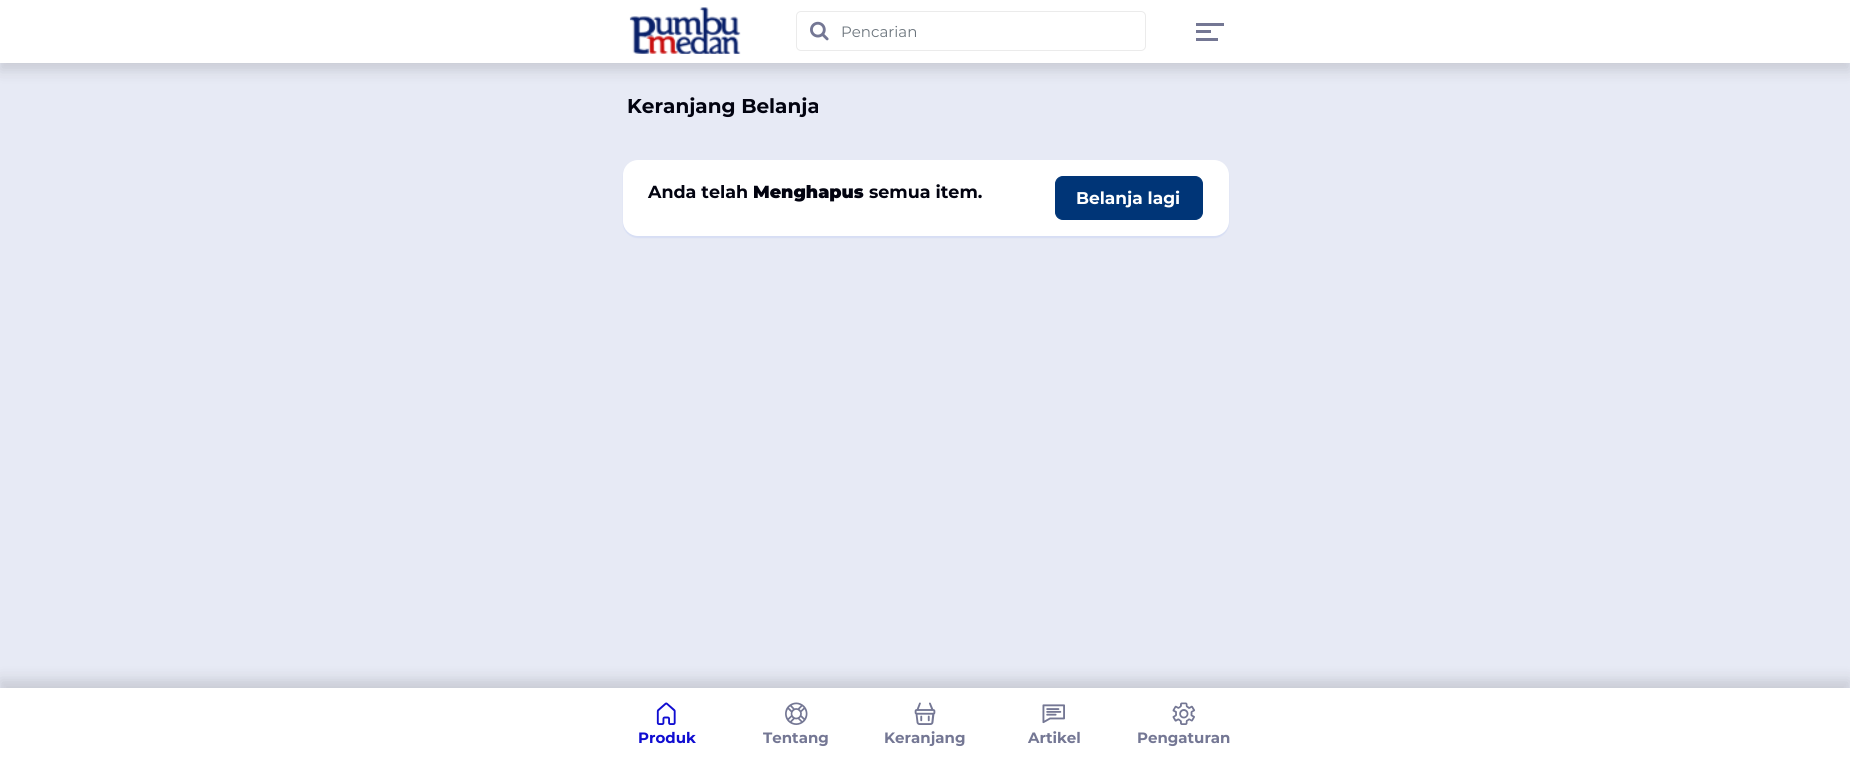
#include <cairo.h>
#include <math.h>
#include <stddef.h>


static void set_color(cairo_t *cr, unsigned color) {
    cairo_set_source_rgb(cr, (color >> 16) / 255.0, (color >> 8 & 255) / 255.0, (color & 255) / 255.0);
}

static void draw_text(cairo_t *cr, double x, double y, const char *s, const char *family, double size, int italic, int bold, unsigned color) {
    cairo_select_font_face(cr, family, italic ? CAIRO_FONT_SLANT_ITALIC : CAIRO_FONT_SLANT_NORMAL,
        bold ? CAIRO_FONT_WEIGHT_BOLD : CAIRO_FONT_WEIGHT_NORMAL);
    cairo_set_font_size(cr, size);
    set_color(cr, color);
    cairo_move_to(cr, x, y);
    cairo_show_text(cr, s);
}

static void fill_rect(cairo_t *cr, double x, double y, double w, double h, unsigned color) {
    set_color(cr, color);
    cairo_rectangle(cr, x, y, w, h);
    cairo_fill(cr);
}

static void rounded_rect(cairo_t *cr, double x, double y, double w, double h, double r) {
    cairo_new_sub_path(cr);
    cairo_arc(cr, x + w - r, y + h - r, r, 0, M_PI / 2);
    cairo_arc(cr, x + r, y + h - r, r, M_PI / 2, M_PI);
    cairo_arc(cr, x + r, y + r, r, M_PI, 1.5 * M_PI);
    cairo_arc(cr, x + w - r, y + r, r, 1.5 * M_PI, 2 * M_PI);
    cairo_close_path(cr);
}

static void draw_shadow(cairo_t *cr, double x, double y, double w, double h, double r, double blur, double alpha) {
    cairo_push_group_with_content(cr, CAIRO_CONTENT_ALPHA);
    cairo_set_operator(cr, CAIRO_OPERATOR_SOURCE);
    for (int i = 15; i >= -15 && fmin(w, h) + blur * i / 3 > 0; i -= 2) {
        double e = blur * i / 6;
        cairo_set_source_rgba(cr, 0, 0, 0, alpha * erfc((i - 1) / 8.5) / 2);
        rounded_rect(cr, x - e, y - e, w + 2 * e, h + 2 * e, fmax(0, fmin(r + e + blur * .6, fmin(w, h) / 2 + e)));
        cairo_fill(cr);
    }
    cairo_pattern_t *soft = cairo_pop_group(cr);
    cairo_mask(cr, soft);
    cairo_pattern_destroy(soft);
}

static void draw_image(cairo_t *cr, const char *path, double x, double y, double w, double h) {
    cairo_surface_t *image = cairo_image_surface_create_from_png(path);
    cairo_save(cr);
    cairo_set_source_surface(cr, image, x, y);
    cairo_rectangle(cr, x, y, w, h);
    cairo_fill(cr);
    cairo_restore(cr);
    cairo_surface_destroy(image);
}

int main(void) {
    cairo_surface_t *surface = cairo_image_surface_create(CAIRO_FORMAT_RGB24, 1850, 760);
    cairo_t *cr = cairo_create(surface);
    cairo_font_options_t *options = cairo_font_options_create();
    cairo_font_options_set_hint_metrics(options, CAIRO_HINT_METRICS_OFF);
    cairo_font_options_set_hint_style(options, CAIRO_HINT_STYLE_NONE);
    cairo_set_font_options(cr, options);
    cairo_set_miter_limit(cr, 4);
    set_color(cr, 0xE7EAF5);
    cairo_paint(cr);
    set_color(cr, 0x0F0F0F);
    draw_shadow(cr, 0, 8, 1850, 62, 0, 7.5, 0.15);
    fill_rect(cr, 0, 0, 1850, 63, 0xFFFFFF);
    draw_image(cr, "assets/img1.png", 629, 7, 112, 47);
    rounded_rect(cr, 796.5, 11.5, 349, 39, 4.5);
    set_color(cr, 0xEBEBEB);
    cairo_set_line_width(cr, 1);
    cairo_stroke(cr);
    draw_image(cr, "assets/img2.png", 810, 21, 19, 20);
    draw_text(cr, 841, 37, "Pencarian", "Montserrat", 15, 0, 0, 0x6C757D);
    fill_rect(cr, 1196, 23, 28, 3, 0x747794);
    fill_rect(cr, 1196, 30, 15, 3, 0x747794);
    fill_rect(cr, 1196, 38, 22, 3, 0x747794);
    draw_text(cr, 627, 113, "Keranjang Belanja", "Montserrat", 20, 0, 1, 0x020310);
    set_color(cr, 0xD7DEF4);
    draw_shadow(cr, 623, 161, 606, 77, 15, 0.5, 1);
    set_color(cr, 0xFFFFFF);
    rounded_rect(cr, 623, 160, 606, 76, 15);
    cairo_fill(cr);
    draw_text(cr, 648, 198, "Anda telah", "Montserrat", 17.5, 0, 1, 0x020310);
    draw_text(cr, 753, 198, "Menghapus", "Montserrat Black", 17.5, 0, 0, 0x020310);
    draw_text(cr, 869, 198, "semua item.", "Montserrat", 17.5, 0, 1, 0x020310);
    set_color(cr, 0x003577);
    rounded_rect(cr, 1055.5, 176.5, 147, 43, 7.5);
    cairo_fill_preserve(cr);
    cairo_stroke(cr);
    draw_text(cr, 1076, 204, "Belanja lagi", "Montserrat", 17, 0, 1, 0xFFFFFF);
    set_color(cr, 0x0F0F0F);
    draw_shadow(cr, 0, 680, 1850, 73, 0, 7.5, 0.15);
    fill_rect(cr, 0, 688, 1850, 72, 0xFFFFFF);
    draw_image(cr, "assets/img3.png", 656, 702, 20, 23);
    draw_text(cr, 638, 743, "Produk", "Montserrat", 15, 0, 1, 0x100DD1);
    draw_image(cr, "assets/img4.png", 785, 702, 23, 23);
    draw_text(cr, 763, 743, "Tentang", "Montserrat", 15, 0, 1, 0x747794);
    draw_image(cr, "assets/img5.png", 914, 702, 22, 23);
    draw_text(cr, 884, 743, "Keranjang", "Montserrat", 15, 0, 1, 0x747794);
    draw_image(cr, "assets/img6.png", 1042, 704, 23, 20);
    draw_text(cr, 1028, 743, "Artikel", "Montserrat", 15, 0, 1, 0x747794);
    draw_image(cr, "assets/img7.png", 1172, 702, 24, 23);
    draw_text(cr, 1137, 743, "Pengaturan", "Montserrat", 15, 0, 1, 0x747794);
    cairo_surface_write_to_png(surface, "output.png");
    cairo_font_options_destroy(options);
    cairo_destroy(cr);
    cairo_surface_destroy(surface);
    return 0;
}
